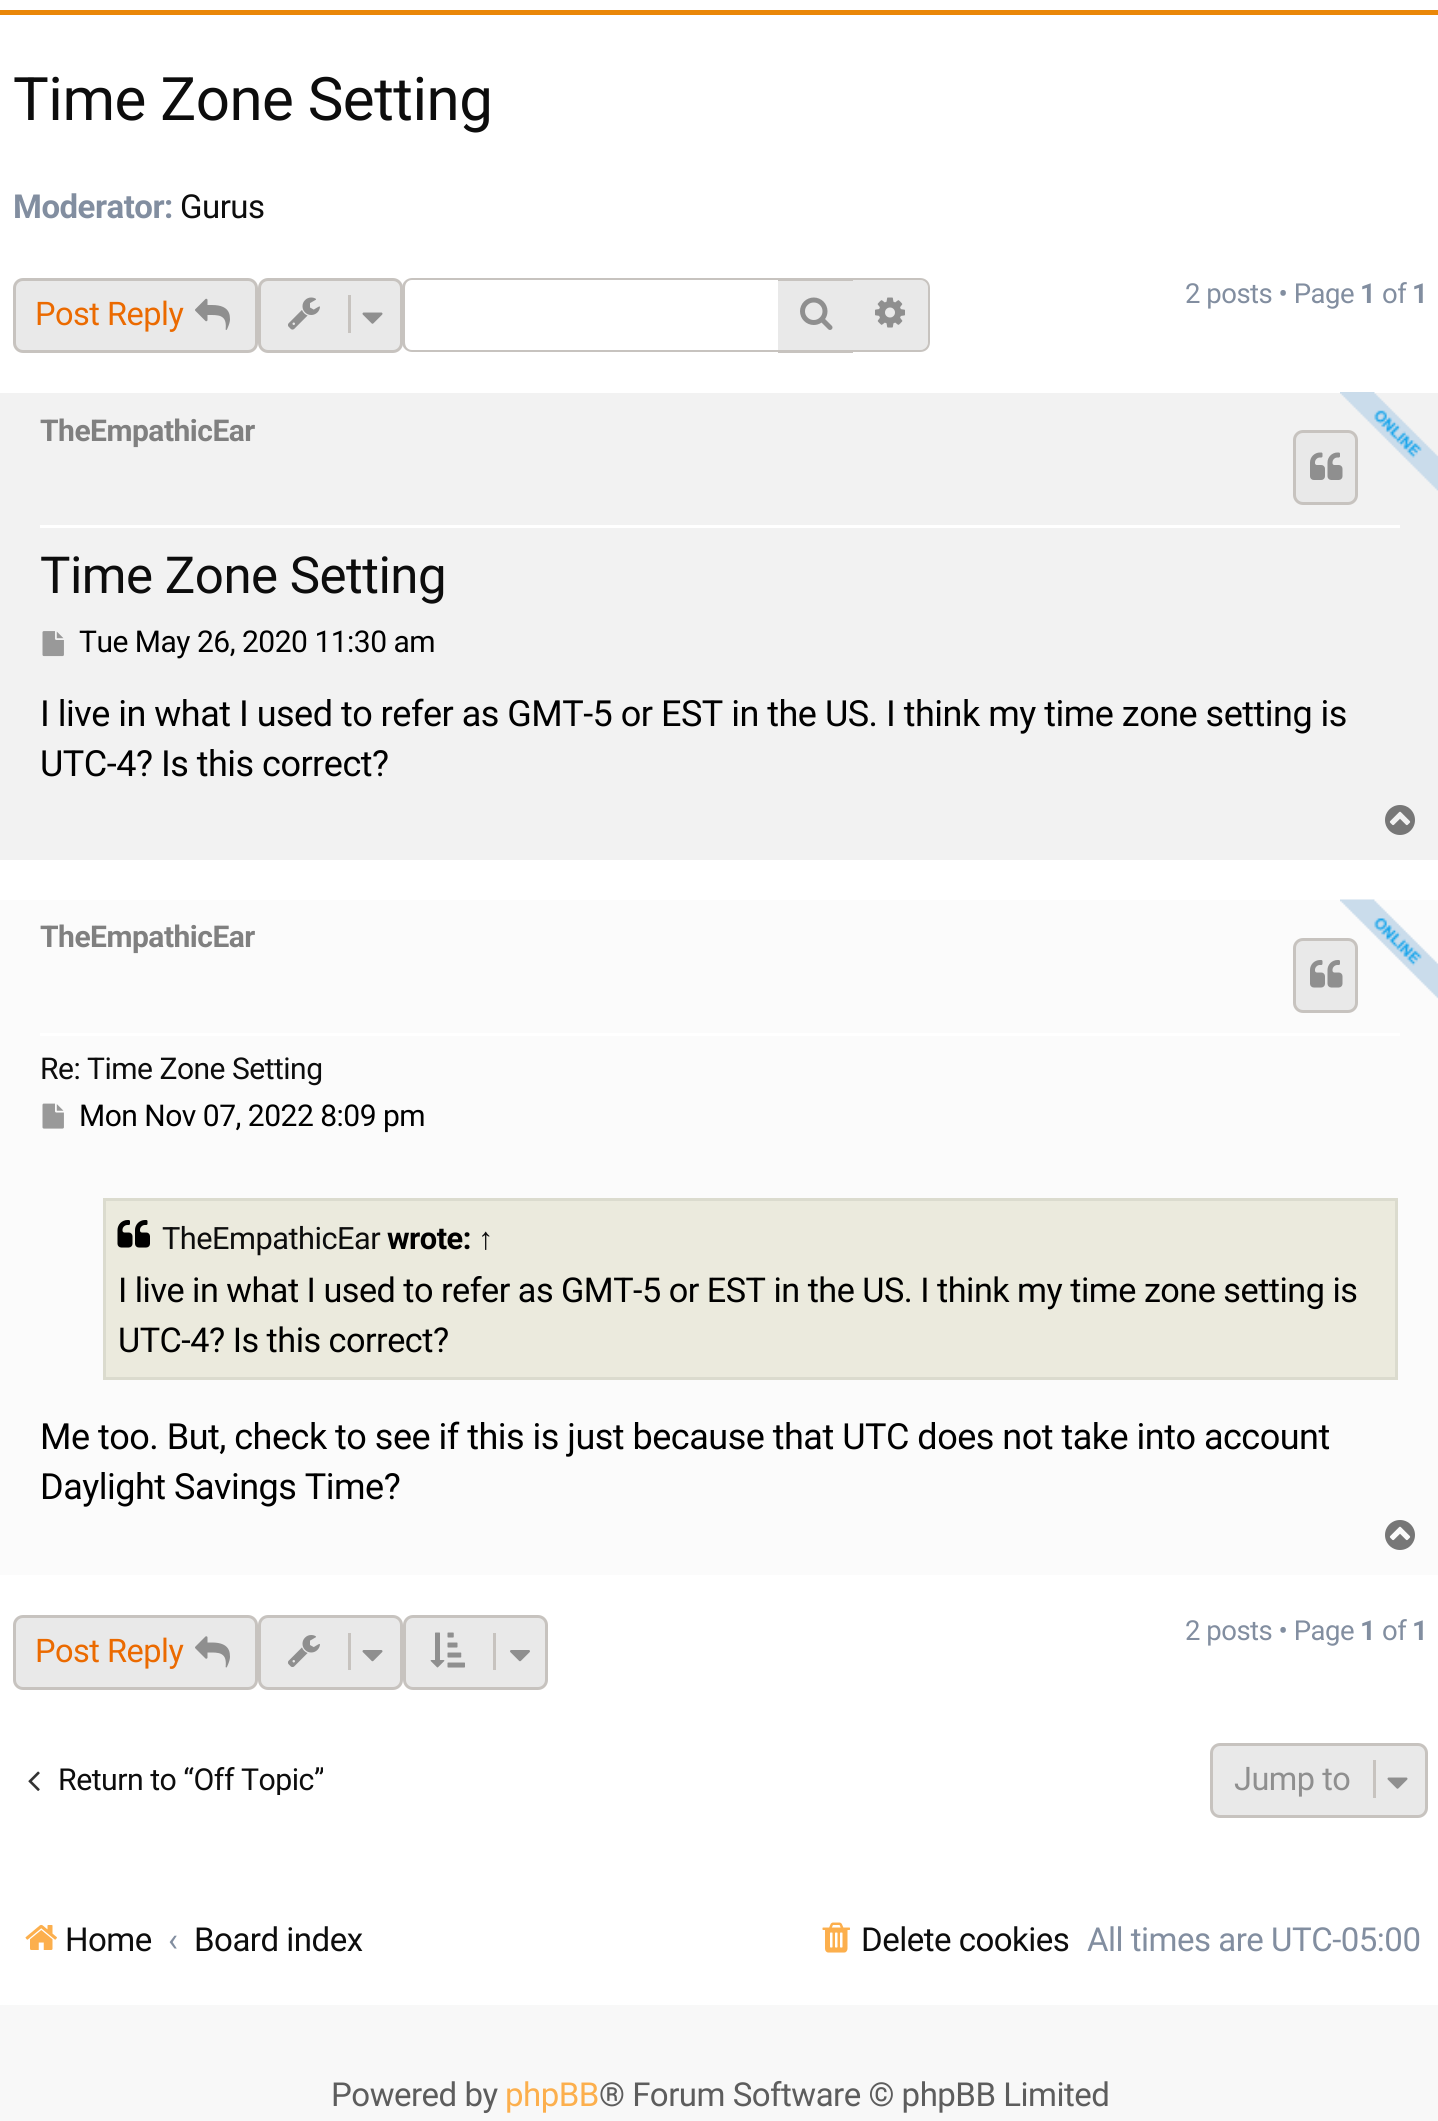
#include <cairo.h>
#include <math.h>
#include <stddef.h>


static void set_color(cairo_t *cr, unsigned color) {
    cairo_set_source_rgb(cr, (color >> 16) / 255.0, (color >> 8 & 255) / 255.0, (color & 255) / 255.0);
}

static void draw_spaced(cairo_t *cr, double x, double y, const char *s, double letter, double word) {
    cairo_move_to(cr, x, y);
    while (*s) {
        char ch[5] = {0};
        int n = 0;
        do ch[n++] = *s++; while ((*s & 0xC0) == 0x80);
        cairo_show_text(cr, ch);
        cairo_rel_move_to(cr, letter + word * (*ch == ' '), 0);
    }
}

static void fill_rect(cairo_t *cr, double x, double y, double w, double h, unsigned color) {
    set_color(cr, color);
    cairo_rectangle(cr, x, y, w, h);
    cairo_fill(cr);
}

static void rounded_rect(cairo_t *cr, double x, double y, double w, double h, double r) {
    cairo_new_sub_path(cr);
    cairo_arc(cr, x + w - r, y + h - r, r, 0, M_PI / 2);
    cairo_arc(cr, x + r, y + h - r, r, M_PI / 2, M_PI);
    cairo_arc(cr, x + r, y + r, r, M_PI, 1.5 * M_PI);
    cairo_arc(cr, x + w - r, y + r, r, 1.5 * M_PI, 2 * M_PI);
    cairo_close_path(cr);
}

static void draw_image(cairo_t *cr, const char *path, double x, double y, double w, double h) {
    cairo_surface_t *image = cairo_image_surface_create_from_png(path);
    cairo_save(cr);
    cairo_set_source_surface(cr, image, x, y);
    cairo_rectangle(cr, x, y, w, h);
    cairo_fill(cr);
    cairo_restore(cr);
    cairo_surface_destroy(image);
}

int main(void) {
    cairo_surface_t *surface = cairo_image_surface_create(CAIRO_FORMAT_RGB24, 1438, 2121);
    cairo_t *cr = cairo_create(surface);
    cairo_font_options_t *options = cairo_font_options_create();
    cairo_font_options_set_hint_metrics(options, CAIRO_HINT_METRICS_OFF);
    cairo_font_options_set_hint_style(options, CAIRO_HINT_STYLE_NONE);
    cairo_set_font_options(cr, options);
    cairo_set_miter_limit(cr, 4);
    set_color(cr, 0xFFFFFF);
    cairo_paint(cr);
    fill_rect(cr, 0, 10, 1438, 5, 0xEA8708);
    cairo_select_font_face(cr, "Roboto", CAIRO_FONT_SLANT_NORMAL, CAIRO_FONT_WEIGHT_NORMAL);
    cairo_set_font_size(cr, 60);
    set_color(cr, 0x0D0D0D);
    draw_spaced(cr, 13, 120, "Time Zone Setting", -0.5, 0);
    cairo_select_font_face(cr, "Roboto", CAIRO_FONT_SLANT_NORMAL, CAIRO_FONT_WEIGHT_BOLD);
    cairo_set_font_size(cr, 33);
    set_color(cr, 0x828EA0);
    draw_spaced(cr, 13, 218, "Moderator:", -0.5, 0);
    cairo_select_font_face(cr, "Roboto", CAIRO_FONT_SLANT_NORMAL, CAIRO_FONT_WEIGHT_NORMAL);
    set_color(cr, 0x0D0D0D);
    draw_spaced(cr, 180, 218, "Gurus", -0.5, 0);
    set_color(cr, 0xC7C3BF);
    cairo_set_fill_rule(cr, CAIRO_FILL_RULE_EVEN_ODD);
    cairo_new_path(cr);
    cairo_move_to(cr, 412, 278);
    cairo_line_to(cr, 778, 278);
    cairo_line_to(cr, 778, 352);
    cairo_line_to(cr, 412, 352);
    cairo_curve_to(cr, 407, 352, 402, 348, 402, 342);
    cairo_line_to(cr, 402, 288);
    cairo_curve_to(cr, 402, 282, 407, 278, 412, 278);
    cairo_close_path(cr);
    cairo_move_to(cr, 412, 280);
    cairo_line_to(cr, 778, 280);
    cairo_line_to(cr, 778, 350);
    cairo_line_to(cr, 412, 350);
    cairo_curve_to(cr, 408, 350, 405, 347, 405, 342);
    cairo_line_to(cr, 405, 288);
    cairo_curve_to(cr, 405, 283, 408, 280, 412, 280);
    cairo_close_path(cr);
    cairo_fill(cr);
    set_color(cr, 0xE9E9E9);
    rounded_rect(cr, 259.5, 279.5, 142, 72, 8.5);
    cairo_fill_preserve(cr);
    set_color(cr, 0xC7C3BF);
    cairo_set_line_width(cr, 3);
    cairo_stroke(cr);
    draw_image(cr, "assets/img1.png", 288, 297, 32, 33);
    fill_rect(cr, 348, 295, 3, 38, 0xC7C3BF);
    draw_image(cr, "assets/img2.png", 362, 312, 21, 12);
    fill_rect(cr, 778, 281, 75, 69, 0xE9E9E9);
    fill_rect(cr, 778, 278, 75, 3, 0xC7C3BF);
    fill_rect(cr, 778, 350, 75, 3, 0xC7C3BF);
    draw_image(cr, "assets/img3.png", 800, 297, 33, 33);
    set_color(cr, 0xE9E9E9);
    cairo_new_path(cr);
    cairo_move_to(cr, 853, 280);
    cairo_line_to(cr, 920, 280);
    cairo_curve_to(cr, 924.5, 280, 928, 283.5, 928, 288);
    cairo_line_to(cr, 928, 342);
    cairo_curve_to(cr, 928, 346.5, 924.5, 350, 920, 350);
    cairo_line_to(cr, 853, 350);
    cairo_close_path(cr);
    cairo_fill(cr);
    set_color(cr, 0xC7C3BF);
    cairo_new_path(cr);
    cairo_move_to(cr, 852, 278);
    cairo_line_to(cr, 920, 278);
    cairo_curve_to(cr, 926, 278, 930, 282, 930, 288);
    cairo_line_to(cr, 930, 342);
    cairo_curve_to(cr, 930, 348, 926, 352, 920, 352);
    cairo_line_to(cr, 852, 352);
    cairo_close_path(cr);
    cairo_move_to(cr, 852, 280);
    cairo_line_to(cr, 920, 280);
    cairo_curve_to(cr, 924, 280, 928, 283, 928, 288);
    cairo_line_to(cr, 928, 342);
    cairo_curve_to(cr, 928, 347, 924, 350, 920, 350);
    cairo_line_to(cr, 852, 350);
    cairo_close_path(cr);
    cairo_fill(cr);
    draw_image(cr, "assets/img4.png", 875, 297, 30, 31);
    cairo_set_font_size(cr, 27.5);
    set_color(cr, 0x828EA0);
    draw_spaced(cr, 1185, 303, "2 posts • Page", -0.5, 0);
    cairo_select_font_face(cr, "Roboto", CAIRO_FONT_SLANT_NORMAL, CAIRO_FONT_WEIGHT_BOLD);
    draw_spaced(cr, 1360, 303, "1", -0.5, 0);
    cairo_select_font_face(cr, "Roboto", CAIRO_FONT_SLANT_NORMAL, CAIRO_FONT_WEIGHT_NORMAL);
    draw_spaced(cr, 1382, 303, "of", -0.5, 0);
    cairo_select_font_face(cr, "Roboto", CAIRO_FONT_SLANT_NORMAL, CAIRO_FONT_WEIGHT_BOLD);
    draw_spaced(cr, 1412, 303, "1", -0.5, 0);
    set_color(cr, 0xE9E9E9);
    rounded_rect(cr, 14.5, 279.5, 242, 72, 8.5);
    cairo_fill_preserve(cr);
    set_color(cr, 0xC7C3BF);
    cairo_stroke(cr);
    cairo_select_font_face(cr, "Roboto", CAIRO_FONT_SLANT_NORMAL, CAIRO_FONT_WEIGHT_NORMAL);
    cairo_set_font_size(cr, 32.5);
    set_color(cr, 0xEB6A00);
    draw_spaced(cr, 35, 325, "Post Reply", -0.5, 0);
    draw_image(cr, "assets/img5.png", 195, 298, 35, 32);
    fill_rect(cr, 0, 393, 1438, 467, 0xF2F2F2);
    draw_image(cr, "assets/img6.png", 1340, 392, 98, 99);
    fill_rect(cr, 40, 525, 1360, 3, 0xFFFFFF);
    cairo_select_font_face(cr, "Roboto", CAIRO_FONT_SLANT_NORMAL, CAIRO_FONT_WEIGHT_BOLD);
    cairo_set_font_size(cr, 30);
    set_color(cr, 0x808080);
    draw_spaced(cr, 40, 441, "TheEmpathicEar", -0.5, 0);
    set_color(cr, 0xE9E9E9);
    rounded_rect(cr, 1294.5, 431.5, 62, 72, 8.5);
    cairo_fill_preserve(cr);
    set_color(cr, 0xC7C3BF);
    cairo_stroke(cr);
    draw_image(cr, "assets/img7.png", 1310, 452, 33, 28);
    cairo_select_font_face(cr, "Roboto", CAIRO_FONT_SLANT_NORMAL, CAIRO_FONT_WEIGHT_NORMAL);
    cairo_set_font_size(cr, 51);
    set_color(cr, 0x0D0D0D);
    draw_spaced(cr, 40, 593, "Time Zone Setting", -0.5, 0);
    draw_image(cr, "assets/img8.png", 42, 631, 22, 26);
    cairo_set_font_size(cr, 30);
    set_color(cr, 0x000000);
    draw_spaced(cr, 79, 652, "Tue May 26, 2020 11:30 am", -0.5, 0);
    cairo_set_font_size(cr, 36);
    draw_spaced(cr, 40, 726, "I live in what I used to refer as GMT-5 or EST in the US. I think my time zone setting is", -0.5, 0);
    draw_spaced(cr, 40, 776, "UTC-4? Is this correct?", -0.5, 0);
    draw_image(cr, "assets/img9.png", 1385, 805, 30, 30);
    fill_rect(cr, 0, 900, 1438, 675, 0xFBFBFB);
    draw_image(cr, "assets/img10.png", 1340, 899, 98, 100);
    fill_rect(cr, 40, 1033, 1360, 3, 0xFFFFFF);
    cairo_select_font_face(cr, "Roboto", CAIRO_FONT_SLANT_NORMAL, CAIRO_FONT_WEIGHT_BOLD);
    cairo_set_font_size(cr, 30);
    set_color(cr, 0x808080);
    draw_spaced(cr, 40, 947, "TheEmpathicEar", -0.5, 0);
    set_color(cr, 0xE9E9E9);
    rounded_rect(cr, 1294.5, 939.5, 62, 72, 8.5);
    cairo_fill_preserve(cr);
    set_color(cr, 0xC7C3BF);
    cairo_stroke(cr);
    draw_image(cr, "assets/img11.png", 1310, 960, 33, 28);
    cairo_select_font_face(cr, "Roboto", CAIRO_FONT_SLANT_NORMAL, CAIRO_FONT_WEIGHT_NORMAL);
    set_color(cr, 0x0D0D0D);
    draw_spaced(cr, 40, 1079, "Re: Time Zone Setting", -0.5, 0);
    draw_image(cr, "assets/img12.png", 42, 1103, 22, 26);
    set_color(cr, 0x000000);
    draw_spaced(cr, 79, 1126, "Mon Nov 07, 2022 8:09 pm", -0.5, 0);
    set_color(cr, 0xEBEADD);
    cairo_rectangle(cr, 104.5, 1199.5, 1292, 179);
    cairo_fill_preserve(cr);
    set_color(cr, 0xDBDBCE);
    cairo_stroke(cr);
    draw_image(cr, "assets/img13.png", 117, 1220, 33, 28);
    cairo_set_font_size(cr, 30.75);
    set_color(cr, 0x0D0D0D);
    draw_spaced(cr, 162, 1249, "TheEmpathicEar", -0.5, 0);
    cairo_select_font_face(cr, "Roboto", CAIRO_FONT_SLANT_NORMAL, CAIRO_FONT_WEIGHT_BOLD);
    set_color(cr, 0x000000);
    draw_spaced(cr, 387, 1249, "wrote:", -0.5, 0);
    cairo_select_font_face(cr, "Liberation Sans", CAIRO_FONT_SLANT_NORMAL, CAIRO_FONT_WEIGHT_NORMAL);
    set_color(cr, 0x0D0D0D);
    draw_spaced(cr, 478, 1249, "↑", -0.5, 0);
    cairo_select_font_face(cr, "Roboto", CAIRO_FONT_SLANT_NORMAL, CAIRO_FONT_WEIGHT_NORMAL);
    cairo_set_font_size(cr, 34.2);
    set_color(cr, 0x000000);
    draw_spaced(cr, 118, 1302, "I live in what I used to refer as GMT-5 or EST in the US. I think my time zone setting is", -0.5, 0);
    draw_spaced(cr, 118, 1352, "UTC-4? Is this correct?", -0.5, 0);
    cairo_set_font_size(cr, 36);
    draw_spaced(cr, 40, 1449, "Me too. But, check to see if this is just because that UTC does not take into account", -0.5, 0);
    draw_spaced(cr, 40, 1499, "Daylight Savings Time?", -0.5, 0);
    draw_image(cr, "assets/img14.png", 1385, 1520, 30, 30);
    set_color(cr, 0xE9E9E9);
    rounded_rect(cr, 259.5, 1616.5, 142, 72, 8.5);
    cairo_fill_preserve(cr);
    set_color(cr, 0xC7C3BF);
    cairo_stroke(cr);
    draw_image(cr, "assets/img15.png", 288, 1635, 32, 32);
    fill_rect(cr, 348, 1633, 3, 37, 0xC7C3BF);
    draw_image(cr, "assets/img16.png", 362, 1650, 21, 12);
    set_color(cr, 0xE9E9E9);
    rounded_rect(cr, 404.5, 1616.5, 142, 72, 8.5);
    cairo_fill_preserve(cr);
    set_color(cr, 0xC7C3BF);
    cairo_stroke(cr);
    draw_image(cr, "assets/img17.png", 430, 1632, 35, 36);
    fill_rect(cr, 493, 1633, 3, 37, 0xC7C3BF);
    draw_image(cr, "assets/img18.png", 510, 1650, 20, 12);
    cairo_set_font_size(cr, 27.5);
    set_color(cr, 0x828EA0);
    draw_spaced(cr, 1185, 1640, "2 posts • Page", -0.5, 0);
    cairo_select_font_face(cr, "Roboto", CAIRO_FONT_SLANT_NORMAL, CAIRO_FONT_WEIGHT_BOLD);
    draw_spaced(cr, 1360, 1640, "1", -0.5, 0);
    cairo_select_font_face(cr, "Roboto", CAIRO_FONT_SLANT_NORMAL, CAIRO_FONT_WEIGHT_NORMAL);
    draw_spaced(cr, 1382, 1640, "of", -0.5, 0);
    cairo_select_font_face(cr, "Roboto", CAIRO_FONT_SLANT_NORMAL, CAIRO_FONT_WEIGHT_BOLD);
    draw_spaced(cr, 1412, 1640, "1", -0.5, 0);
    set_color(cr, 0xE9E9E9);
    rounded_rect(cr, 14.5, 1616.5, 242, 72, 8.5);
    cairo_fill_preserve(cr);
    set_color(cr, 0xC7C3BF);
    cairo_stroke(cr);
    cairo_select_font_face(cr, "Roboto", CAIRO_FONT_SLANT_NORMAL, CAIRO_FONT_WEIGHT_NORMAL);
    cairo_set_font_size(cr, 32.5);
    set_color(cr, 0xEB6A00);
    draw_spaced(cr, 35, 1662, "Post Reply", -0.5, 0);
    draw_image(cr, "assets/img19.png", 195, 1636, 35, 32);
    draw_image(cr, "assets/img20.png", 28, 1771, 12, 20);
    cairo_save(cr);
    cairo_set_fill_rule(cr, CAIRO_FILL_RULE_WINDING);
    cairo_rectangle(cr, 13, 1755, 310, 40);
    cairo_clip(cr);
    cairo_set_font_size(cr, 30.25);
    set_color(cr, 0x0D0D0D);
    draw_spaced(cr, 58, 1790, "Return to “Off Topic”", -0.5, 0);
    cairo_restore(cr);
    set_color(cr, 0xE9E9E9);
    rounded_rect(cr, 1211.5, 1744.5, 215, 72, 8.5);
    cairo_fill_preserve(cr);
    set_color(cr, 0xC7C3BF);
    cairo_stroke(cr);
    set_color(cr, 0x8F8F8F);
    draw_spaced(cr, 1234, 1790, "Jump to", -0.5, 0);
    fill_rect(cr, 1373, 1760, 3, 38, 0xC7C3BF);
    draw_image(cr, "assets/img2.png", 1387, 1777, 21, 12);
    draw_image(cr, "assets/img21.png", 25, 1924, 32, 26);
    cairo_set_font_size(cr, 33);
    set_color(cr, 0x0D0D0D);
    draw_spaced(cr, 65, 1951, "Home", -0.5, 0);
    set_color(cr, 0x828EA0);
    draw_spaced(cr, 168, 1951, "‹", -0.5, 0);
    set_color(cr, 0x0D0D0D);
    draw_spaced(cr, 194, 1951, "Board index", -0.5, 0);
    draw_image(cr, "assets/img22.png", 822, 1922, 28, 31);
    draw_spaced(cr, 861, 1951, "Delete cookies", -0.5, 0);
    set_color(cr, 0x828EA0);
    draw_spaced(cr, 1087, 1951, "All times are UTC-05:00", -0.5, 0);
    fill_rect(cr, 0, 2005, 1438, 116, 0xF8F8F8);
    set_color(cr, 0x5D5D5D);
    draw_spaced(cr, 331, 2106, "Powered by", -0.5, 0);
    set_color(cr, 0xFCAF4D);
    draw_spaced(cr, 505, 2106, "phpBB", -0.5, 0);
    set_color(cr, 0x5D5D5D);
    draw_spaced(cr, 599, 2106, "® Forum Software © phpBB Limited", -0.5, 0);
    cairo_surface_write_to_png(surface, "output.png");
    cairo_font_options_destroy(options);
    cairo_destroy(cr);
    cairo_surface_destroy(surface);
    return 0;
}
